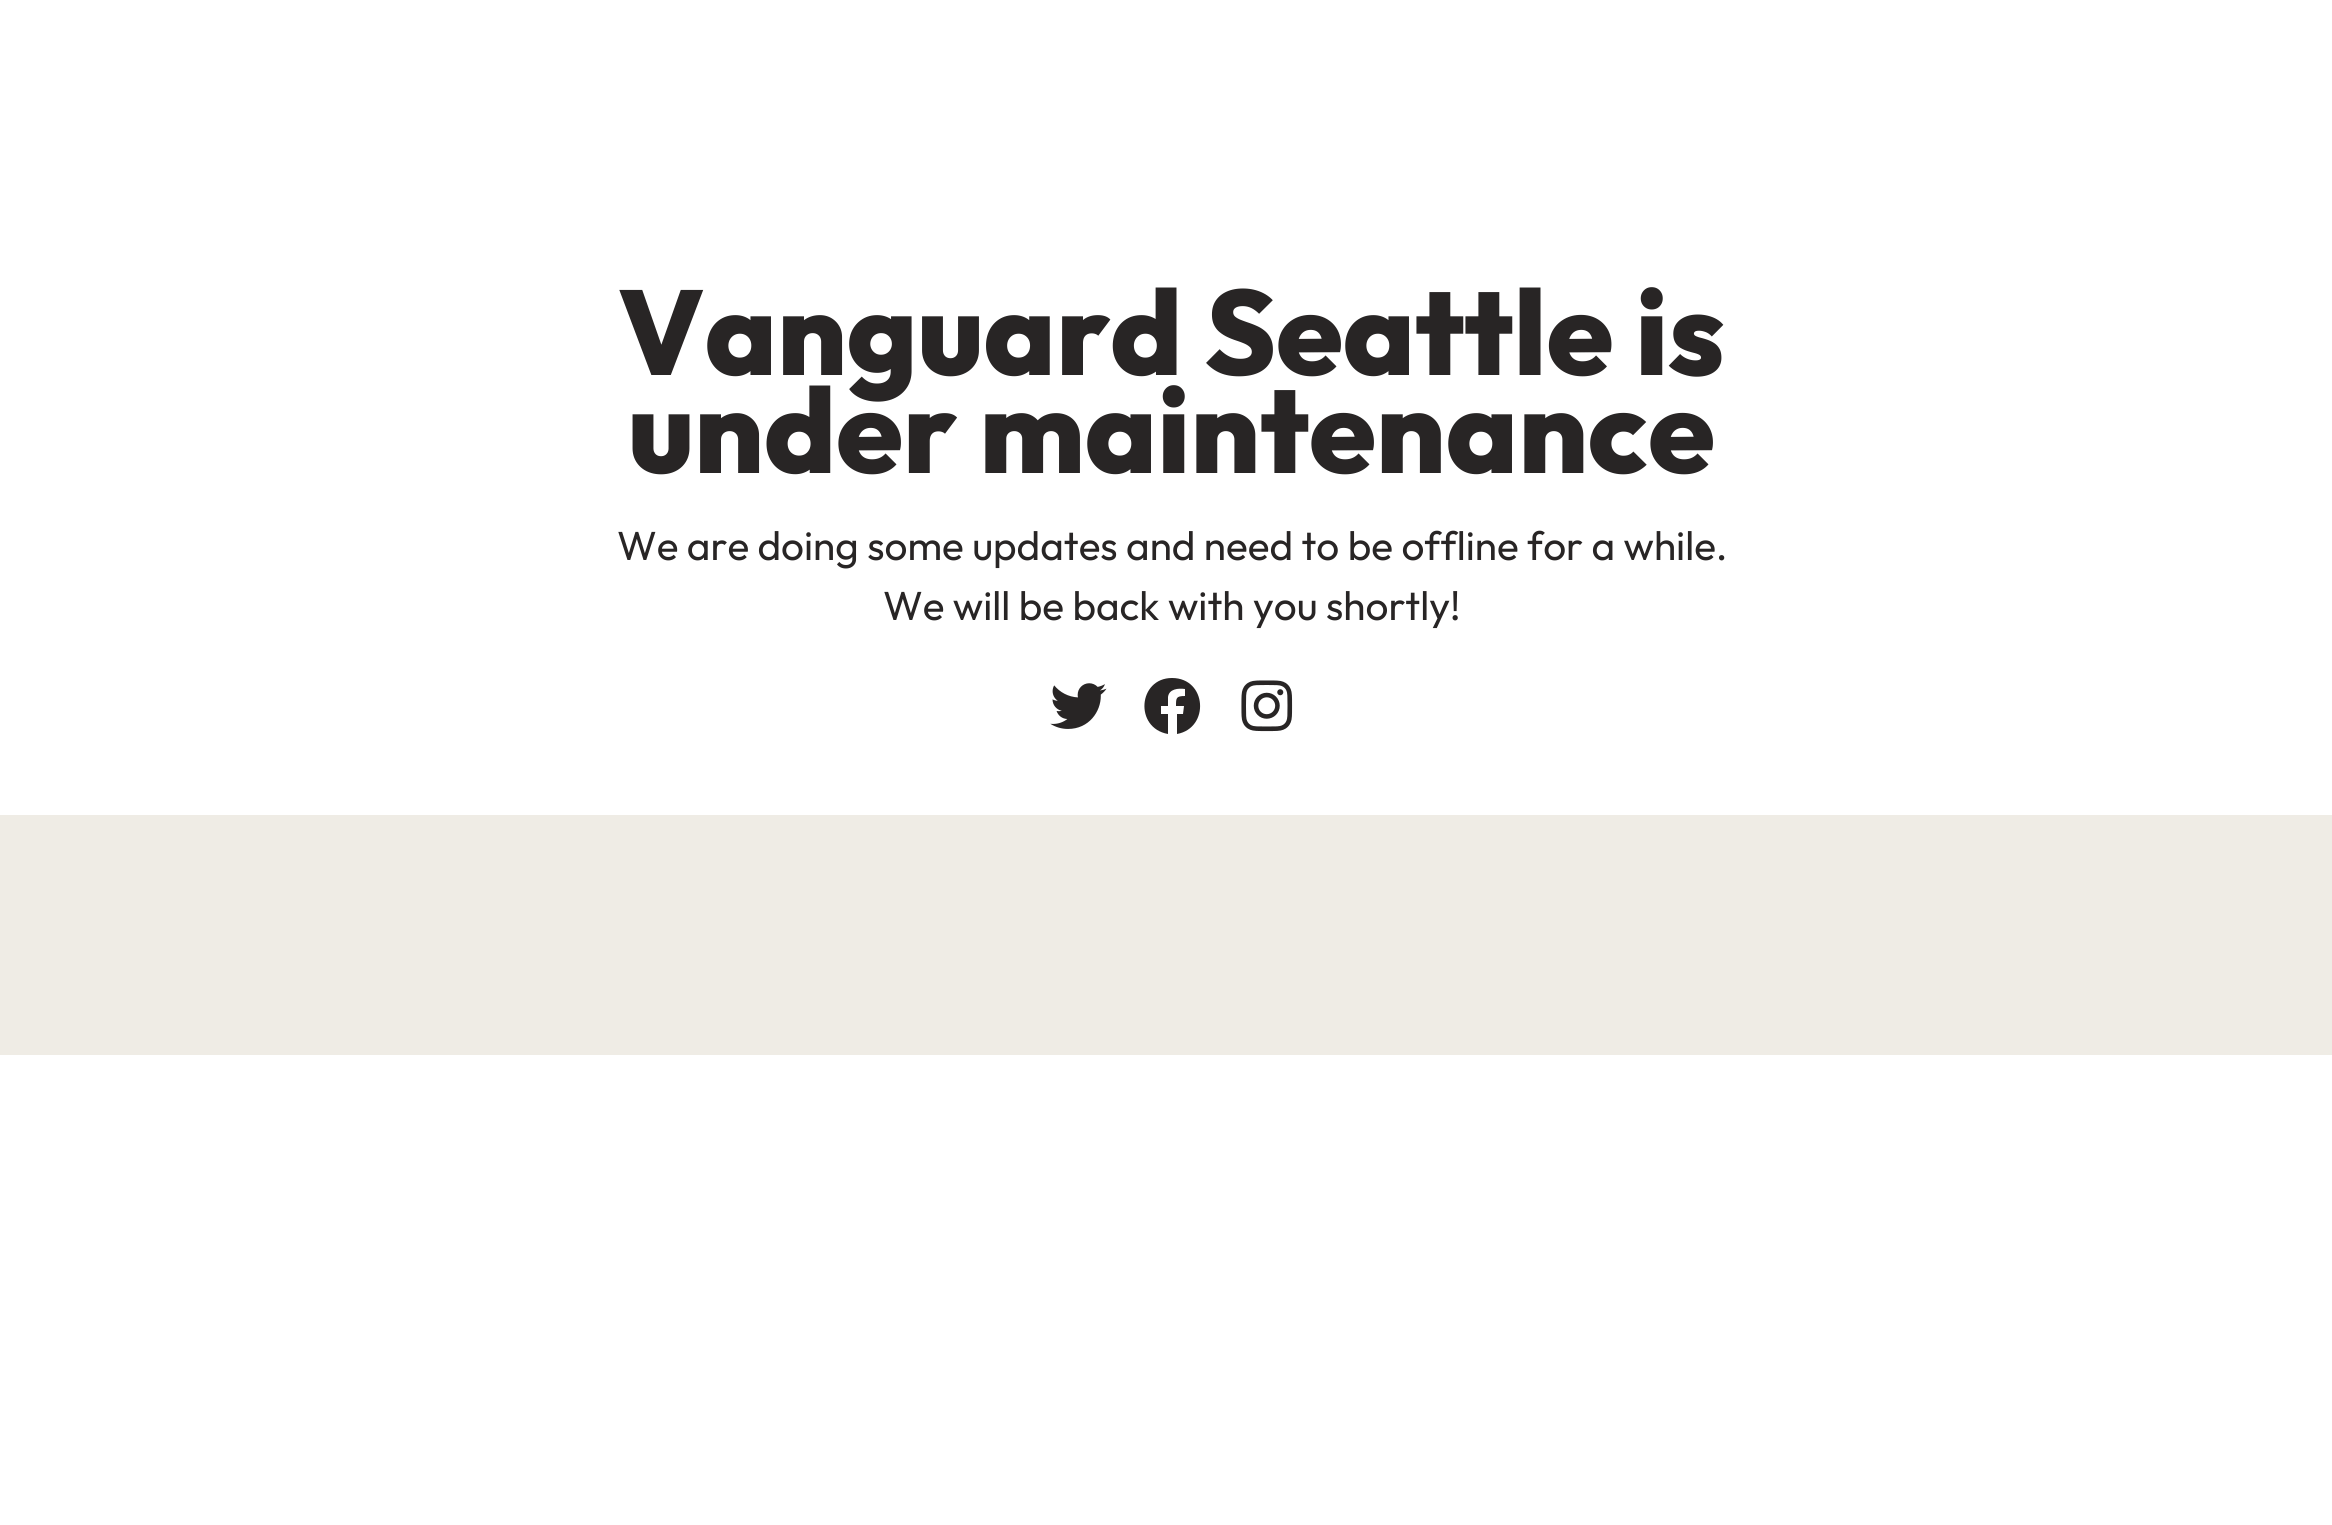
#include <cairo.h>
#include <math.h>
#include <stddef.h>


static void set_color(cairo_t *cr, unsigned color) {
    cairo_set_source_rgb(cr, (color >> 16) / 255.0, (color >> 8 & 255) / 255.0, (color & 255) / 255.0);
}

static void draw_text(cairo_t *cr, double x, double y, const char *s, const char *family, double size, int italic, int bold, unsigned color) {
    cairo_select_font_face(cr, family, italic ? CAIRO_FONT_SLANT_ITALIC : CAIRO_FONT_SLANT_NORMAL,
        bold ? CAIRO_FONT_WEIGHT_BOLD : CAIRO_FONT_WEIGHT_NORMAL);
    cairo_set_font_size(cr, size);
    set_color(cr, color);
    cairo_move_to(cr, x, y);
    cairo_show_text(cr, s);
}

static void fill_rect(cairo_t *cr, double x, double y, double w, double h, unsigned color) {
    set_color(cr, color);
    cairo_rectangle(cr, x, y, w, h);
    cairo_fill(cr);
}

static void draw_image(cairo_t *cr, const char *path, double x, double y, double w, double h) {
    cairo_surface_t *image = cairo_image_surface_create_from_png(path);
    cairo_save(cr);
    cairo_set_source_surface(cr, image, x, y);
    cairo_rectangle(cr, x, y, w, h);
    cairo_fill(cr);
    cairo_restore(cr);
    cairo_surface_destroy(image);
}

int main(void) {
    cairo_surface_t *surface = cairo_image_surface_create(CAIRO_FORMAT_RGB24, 2332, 1525);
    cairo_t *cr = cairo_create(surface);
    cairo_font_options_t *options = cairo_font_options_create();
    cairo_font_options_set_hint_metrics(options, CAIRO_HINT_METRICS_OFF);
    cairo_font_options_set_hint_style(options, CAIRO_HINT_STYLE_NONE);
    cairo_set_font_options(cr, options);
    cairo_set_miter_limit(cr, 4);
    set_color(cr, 0xFFFFFF);
    cairo_paint(cr);
    draw_text(cr, 618, 375, "Vanguard Seattle is", "Outfit ExtraBold", 120, 0, 0, 0x282525);
    draw_text(cr, 628, 473, "under maintenance", "Outfit ExtraBold", 120, 0, 0, 0x282525);
    draw_text(cr, 617, 560, "We are doing some updates and need to be offline for a while.", "Outfit", 40.5, 0, 0, 0x282525);
    draw_text(cr, 883, 620, "We will be back with you shortly!", "Outfit", 40.5, 0, 0, 0x282525);
    draw_image(cr, "assets/img1.png", 1050, 683, 57, 46);
    cairo_new_path(cr);
    cairo_move_to(cr, 1172, 678);
    cairo_curve_to(cr, 1138, 678, 1134, 728, 1168, 734);
    cairo_line_to(cr, 1168, 714);
    cairo_line_to(cr, 1161, 714);
    cairo_line_to(cr, 1161, 706);
    cairo_line_to(cr, 1168, 706);
    cairo_line_to(cr, 1168, 697);
    cairo_curve_to(cr, 1169, 689, 1178, 688, 1185, 689);
    cairo_line_to(cr, 1185, 696);
    cairo_curve_to(cr, 1176, 696, 1176, 698, 1176, 706);
    cairo_line_to(cr, 1184, 706);
    cairo_line_to(cr, 1183, 714);
    cairo_line_to(cr, 1177, 714);
    cairo_line_to(cr, 1177, 734);
    cairo_curve_to(cr, 1210, 728, 1207, 678, 1172, 678);
    cairo_close_path(cr);
    cairo_fill(cr);
    draw_image(cr, "assets/img2.png", 1241, 680, 52, 52);
    fill_rect(cr, 0, 815, 2332, 240, 0xEFECE5);
    cairo_surface_write_to_png(surface, "output.png");
    cairo_font_options_destroy(options);
    cairo_destroy(cr);
    cairo_surface_destroy(surface);
    return 0;
}
